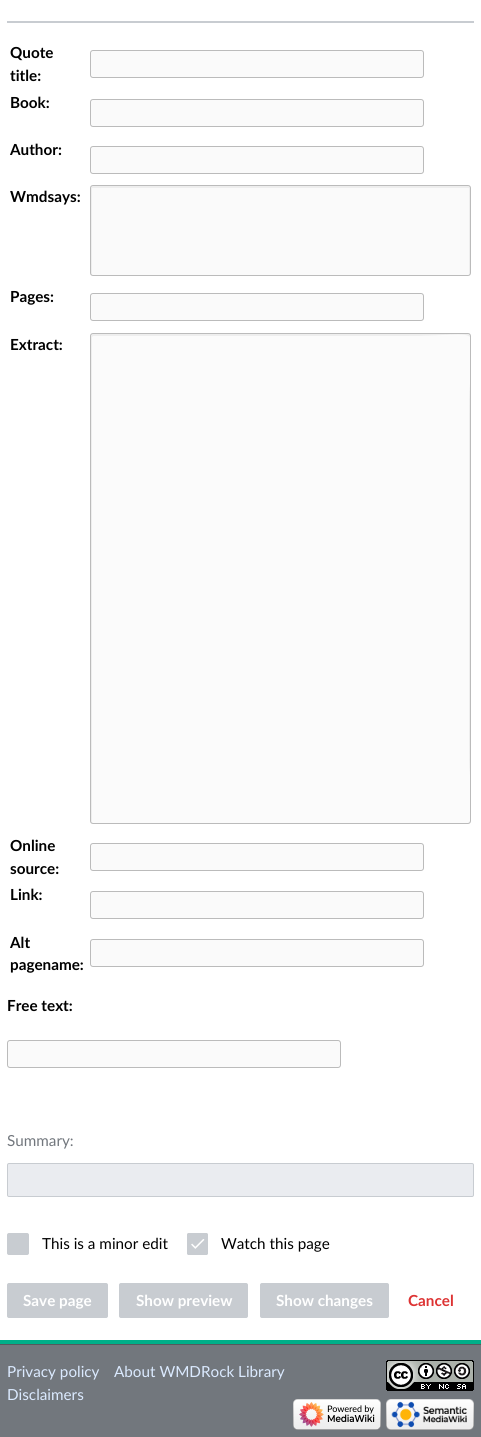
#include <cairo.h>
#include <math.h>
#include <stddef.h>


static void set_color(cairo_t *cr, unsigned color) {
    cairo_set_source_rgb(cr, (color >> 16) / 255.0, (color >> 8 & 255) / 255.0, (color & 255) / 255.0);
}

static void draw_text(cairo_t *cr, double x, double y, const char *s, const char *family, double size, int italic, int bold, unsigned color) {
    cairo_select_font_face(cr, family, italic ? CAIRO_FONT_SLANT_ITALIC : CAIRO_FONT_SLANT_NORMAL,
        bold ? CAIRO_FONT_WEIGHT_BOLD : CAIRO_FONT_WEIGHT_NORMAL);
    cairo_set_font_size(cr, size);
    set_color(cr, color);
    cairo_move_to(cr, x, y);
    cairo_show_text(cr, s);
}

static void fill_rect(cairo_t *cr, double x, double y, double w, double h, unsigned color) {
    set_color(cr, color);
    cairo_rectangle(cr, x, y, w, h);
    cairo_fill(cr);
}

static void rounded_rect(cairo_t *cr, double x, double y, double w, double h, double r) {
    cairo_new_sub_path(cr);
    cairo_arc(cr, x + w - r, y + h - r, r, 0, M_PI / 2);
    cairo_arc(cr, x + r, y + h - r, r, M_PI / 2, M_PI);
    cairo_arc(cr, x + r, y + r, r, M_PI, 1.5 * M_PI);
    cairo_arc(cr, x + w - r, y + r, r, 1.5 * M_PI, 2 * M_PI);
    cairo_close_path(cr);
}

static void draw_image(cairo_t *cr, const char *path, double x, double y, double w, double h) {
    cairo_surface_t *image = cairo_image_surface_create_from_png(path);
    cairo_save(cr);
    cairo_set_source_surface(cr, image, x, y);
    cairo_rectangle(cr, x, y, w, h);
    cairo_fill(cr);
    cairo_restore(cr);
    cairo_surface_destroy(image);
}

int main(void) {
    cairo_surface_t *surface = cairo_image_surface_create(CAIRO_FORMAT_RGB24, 481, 1437);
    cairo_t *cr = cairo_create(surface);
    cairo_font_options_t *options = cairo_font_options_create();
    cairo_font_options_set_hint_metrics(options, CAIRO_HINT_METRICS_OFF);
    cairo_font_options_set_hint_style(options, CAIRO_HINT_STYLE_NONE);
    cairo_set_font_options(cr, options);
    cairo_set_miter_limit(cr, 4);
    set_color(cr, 0x72777D);
    cairo_paint(cr);
    fill_rect(cr, 0, 1340, 481, 4, 0x00AF89);
    fill_rect(cr, 0, 0, 481, 1340, 0xFFFFFF);
    fill_rect(cr, 7, 21, 467, 2, 0xC8CCD1);
    draw_text(cr, 10, 58, "Quote", "Lato", 15.25, 0, 1, 0x000000);
    draw_text(cr, 10, 81, "title:", "Lato", 15.25, 0, 1, 0x000000);
    set_color(cr, 0xFAFAFA);
    rounded_rect(cr, 90.5, 50.5, 333, 27, 2.5);
    cairo_fill_preserve(cr);
    set_color(cr, 0xBBBBBB);
    cairo_set_line_width(cr, 1);
    cairo_stroke(cr);
    draw_text(cr, 10, 108, "Book:", "Lato", 15.25, 0, 1, 0x000000);
    set_color(cr, 0xFAFAFA);
    rounded_rect(cr, 90.5, 99.5, 333, 27, 2.5);
    cairo_fill_preserve(cr);
    set_color(cr, 0xBBBBBB);
    cairo_stroke(cr);
    draw_text(cr, 10, 155, "Author:", "Lato", 15.25, 0, 1, 0x000000);
    set_color(cr, 0xFAFAFA);
    rounded_rect(cr, 90.5, 146.5, 333, 27, 2.5);
    cairo_fill_preserve(cr);
    set_color(cr, 0xBBBBBB);
    cairo_stroke(cr);
    draw_text(cr, 10, 202, "Wmdsays:", "Lato", 15.25, 0, 1, 0x000000);
    set_color(cr, 0xFAFAFA);
    rounded_rect(cr, 90, 185, 381, 91, 3);
    cairo_fill(cr);
    set_color(cr, 0xEEEEEE);
    cairo_new_path(cr);
    cairo_move_to(cr, 93, 188);
    cairo_line_to(cr, 468, 188);
    cairo_curve_to(cr, 469, 188, 469, 188, 469, 189);
    cairo_line_to(cr, 469, 275);
    cairo_curve_to(cr, 470, 274, 470, 274, 470, 273);
    cairo_line_to(cr, 470, 188);
    cairo_curve_to(cr, 470, 187, 469, 186, 468, 186);
    cairo_line_to(cr, 93, 186);
    cairo_curve_to(cr, 92, 186, 91, 187, 91, 188);
    cairo_line_to(cr, 91, 273);
    cairo_curve_to(cr, 91, 274, 91, 274, 92, 275);
    cairo_line_to(cr, 92, 189);
    cairo_curve_to(cr, 92, 188, 92, 188, 93, 188);
    cairo_close_path(cr);
    cairo_fill(cr);
    rounded_rect(cr, 90.5, 185.5, 380, 90, 2.5);
    set_color(cr, 0xBBBBBB);
    cairo_stroke(cr);
    draw_text(cr, 10, 302, "Pages:", "Lato", 15.25, 0, 1, 0x000000);
    set_color(cr, 0xFAFAFA);
    rounded_rect(cr, 90.5, 293.5, 333, 27, 2.5);
    cairo_fill_preserve(cr);
    set_color(cr, 0xBBBBBB);
    cairo_stroke(cr);
    draw_text(cr, 10, 350, "Extract:", "Lato", 15.25, 0, 1, 0x000000);
    set_color(cr, 0xFBFBFB);
    rounded_rect(cr, 90, 333, 381, 491, 3);
    cairo_fill(cr);
    set_color(cr, 0xEEEEEE);
    cairo_set_fill_rule(cr, CAIRO_FILL_RULE_EVEN_ODD);
    cairo_new_path(cr);
    cairo_move_to(cr, 93, 336);
    cairo_line_to(cr, 406, 336);
    cairo_curve_to(cr, 448, 336, 464, 332, 470, 337);
    cairo_line_to(cr, 470, 336);
    cairo_curve_to(cr, 470, 335, 469, 334, 468, 334);
    cairo_line_to(cr, 93, 334);
    cairo_curve_to(cr, 92, 334, 91, 335, 91, 336);
    cairo_line_to(cr, 91, 821);
    cairo_curve_to(cr, 91, 822, 92, 823, 93, 823);
    cairo_line_to(cr, 92, 822);
    cairo_line_to(cr, 92, 337);
    cairo_close_path(cr);
    cairo_move_to(cr, 470, 384);
    cairo_curve_to(cr, 469, 394, 469, 405, 469, 418);
    cairo_line_to(cr, 469, 741);
    cairo_curve_to(cr, 469, 754, 469, 765, 470, 775);
    cairo_close_path(cr);
    cairo_move_to(cr, 470, 821);
    cairo_line_to(cr, 468, 823);
    cairo_curve_to(cr, 469, 823, 470, 822, 470, 821);
    cairo_close_path(cr);
    cairo_fill(cr);
    rounded_rect(cr, 90.5, 333.5, 380, 490, 2.5);
    set_color(cr, 0xBBBBBB);
    cairo_stroke(cr);
    draw_text(cr, 10, 851, "Online", "Lato", 15.25, 0, 1, 0x000000);
    draw_text(cr, 10, 874, "source:", "Lato", 15.25, 0, 1, 0x000000);
    set_color(cr, 0xFAFAFA);
    rounded_rect(cr, 90.5, 843.5, 333, 27, 2.5);
    cairo_fill_preserve(cr);
    set_color(cr, 0xBBBBBB);
    cairo_stroke(cr);
    draw_text(cr, 10, 900, "Link:", "Lato", 15.25, 0, 1, 0x000000);
    set_color(cr, 0xFAFAFA);
    rounded_rect(cr, 90.5, 891.5, 333, 27, 2.5);
    cairo_fill_preserve(cr);
    set_color(cr, 0xBBBBBB);
    cairo_stroke(cr);
    draw_text(cr, 10, 948, "Alt", "Lato", 15.25, 0, 1, 0x000000);
    draw_text(cr, 10, 970, "pagename:", "Lato", 15.25, 0, 1, 0x000000);
    set_color(cr, 0xFAFAFA);
    rounded_rect(cr, 90.5, 939.5, 333, 27, 2.5);
    cairo_fill_preserve(cr);
    set_color(cr, 0xBBBBBB);
    cairo_stroke(cr);
    draw_text(cr, 7, 1011, "Free text:", "Lato", 15.25, 0, 1, 0x000000);
    set_color(cr, 0xFAFAFA);
    rounded_rect(cr, 7.5, 1040.5, 333, 27, 2.5);
    cairo_fill_preserve(cr);
    set_color(cr, 0xBBBBBB);
    cairo_stroke(cr);
    draw_text(cr, 7, 1146, "Summary:", "Lato", 15.25, 0, 0, 0x72777D);
    set_color(cr, 0xEAECF0);
    rounded_rect(cr, 7.5, 1163.5, 466, 33, 1.5);
    cairo_fill_preserve(cr);
    set_color(cr, 0xC8CCD1);
    cairo_stroke(cr);
    rounded_rect(cr, 7.5, 1233.5, 21, 21, 1.5);
    cairo_fill_preserve(cr);
    cairo_stroke(cr);
    draw_text(cr, 42, 1249, "This is a minor edit", "Lato", 15.25, 0, 0, 0x000000);
    set_color(cr, 0xC8CCD1);
    rounded_rect(cr, 187, 1233, 21, 22, 2);
    cairo_fill(cr);
    draw_image(cr, "assets/img1.png", 191, 1239, 14, 10);
    rounded_rect(cr, 187.5, 1233.5, 20, 21, 1.5);
    cairo_stroke(cr);
    draw_text(cr, 221, 1249, "Watch this page", "Lato", 15.25, 0, 0, 0x000000);
    set_color(cr, 0xC8CCD1);
    rounded_rect(cr, 7.5, 1283.5, 100, 34, 1.5);
    cairo_fill_preserve(cr);
    cairo_stroke(cr);
    draw_text(cr, 23, 1306, "Save page", "Lato", 15.25, 0, 1, 0xFFFFFF);
    set_color(cr, 0xC8CCD1);
    rounded_rect(cr, 119.5, 1283.5, 128, 34, 1.5);
    cairo_fill_preserve(cr);
    cairo_stroke(cr);
    draw_text(cr, 136, 1306, "Show preview", "Lato", 15.25, 0, 1, 0xFFFFFF);
    set_color(cr, 0xC8CCD1);
    rounded_rect(cr, 260.5, 1283.5, 128, 34, 1.5);
    cairo_fill_preserve(cr);
    cairo_stroke(cr);
    draw_text(cr, 276, 1306, "Show changes", "Lato", 15.25, 0, 1, 0xFFFFFF);
    draw_text(cr, 408, 1306, "Cancel", "Lato", 15.25, 0, 1, 0xDD3333);
    fill_rect(cr, 0, 1344, 481, 1, 0x54595D);
    draw_text(cr, 7, 1377, "Privacy policy", "Lato", 15.25, 0, 0, 0xDBEAFF);
    draw_text(cr, 114, 1377, "About WMDRock Library", "Lato", 15.25, 0, 0, 0xDBEAFF);
    draw_text(cr, 7, 1400, "Disclaimers", "Lato", 15.25, 0, 0, 0xDBEAFF);
    draw_image(cr, "assets/img2.png", 386, 1360, 88, 31);
    draw_image(cr, "assets/img3.png", 293, 1399, 88, 31);
    draw_image(cr, "assets/img4.png", 386, 1399, 88, 31);
    cairo_surface_write_to_png(surface, "output.png");
    cairo_font_options_destroy(options);
    cairo_destroy(cr);
    cairo_surface_destroy(surface);
    return 0;
}
